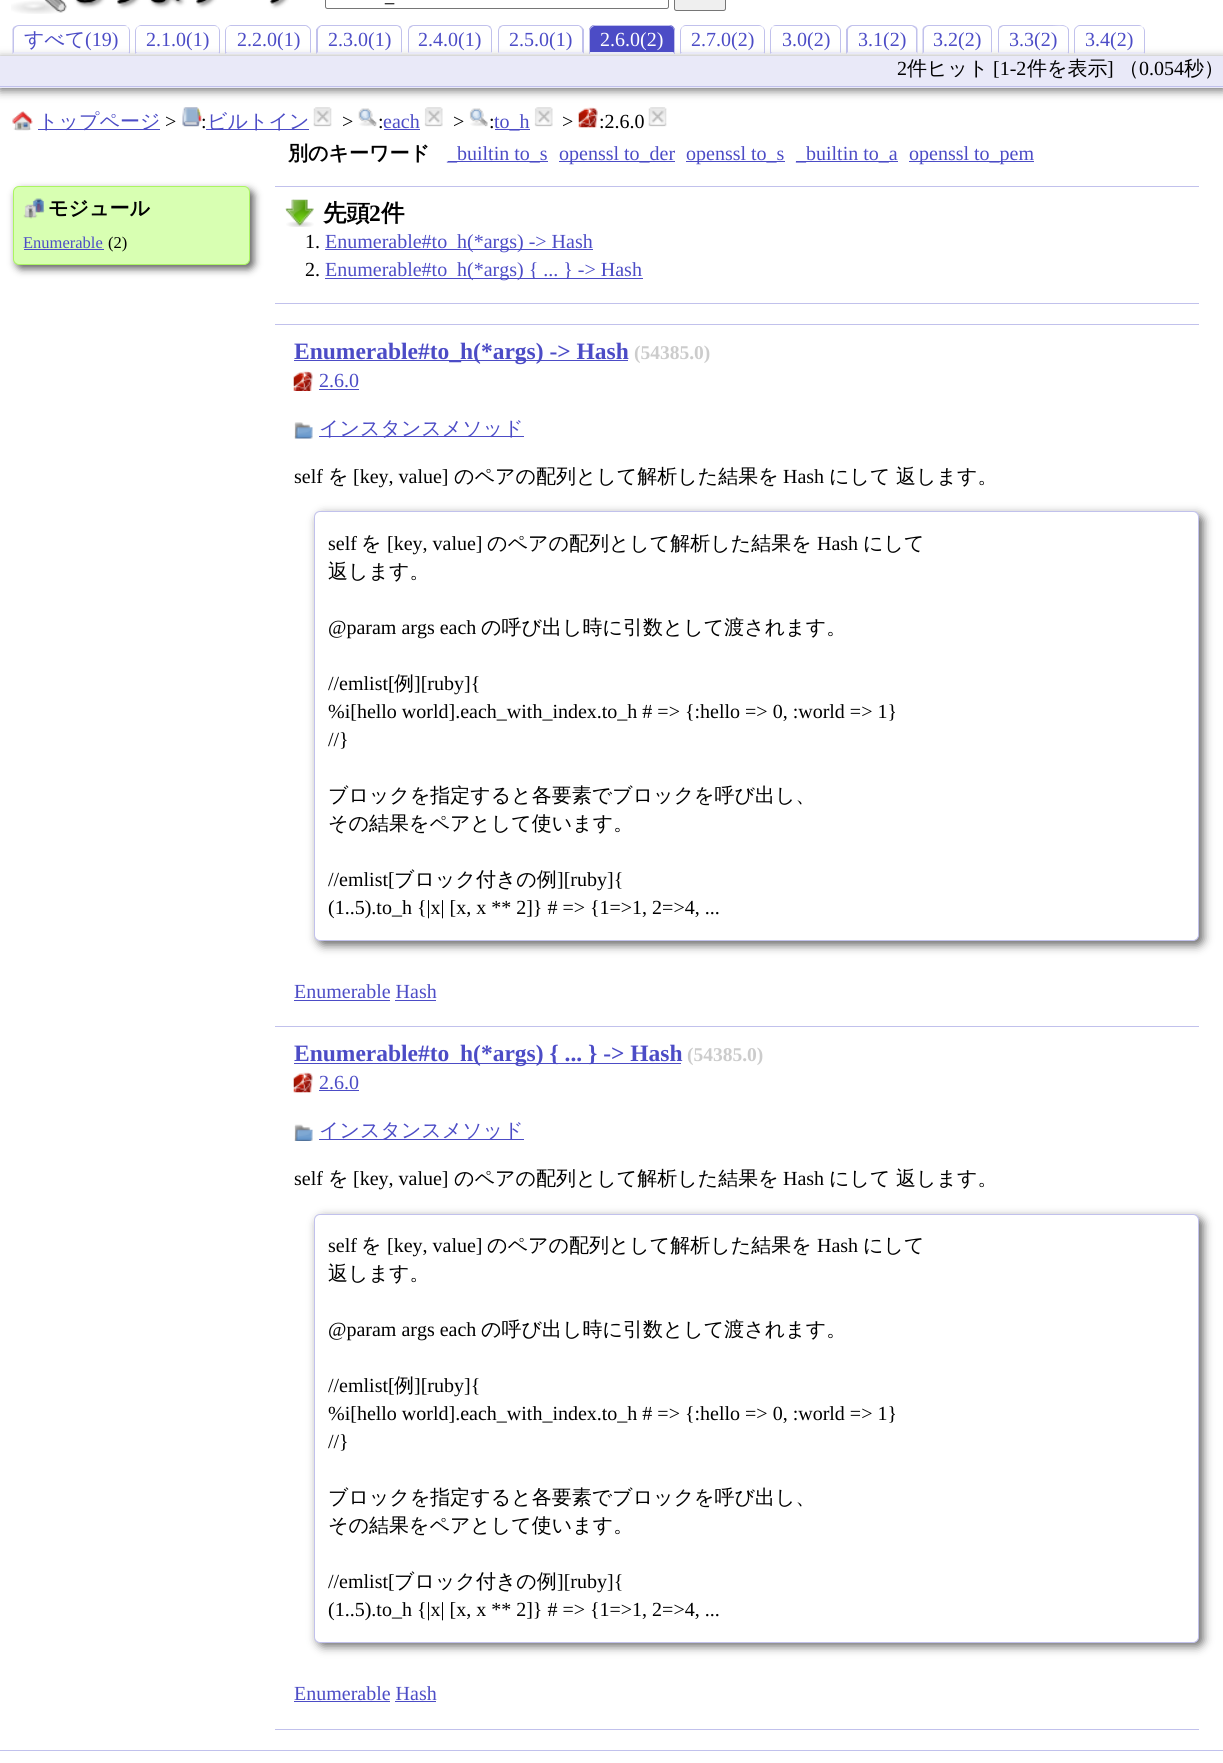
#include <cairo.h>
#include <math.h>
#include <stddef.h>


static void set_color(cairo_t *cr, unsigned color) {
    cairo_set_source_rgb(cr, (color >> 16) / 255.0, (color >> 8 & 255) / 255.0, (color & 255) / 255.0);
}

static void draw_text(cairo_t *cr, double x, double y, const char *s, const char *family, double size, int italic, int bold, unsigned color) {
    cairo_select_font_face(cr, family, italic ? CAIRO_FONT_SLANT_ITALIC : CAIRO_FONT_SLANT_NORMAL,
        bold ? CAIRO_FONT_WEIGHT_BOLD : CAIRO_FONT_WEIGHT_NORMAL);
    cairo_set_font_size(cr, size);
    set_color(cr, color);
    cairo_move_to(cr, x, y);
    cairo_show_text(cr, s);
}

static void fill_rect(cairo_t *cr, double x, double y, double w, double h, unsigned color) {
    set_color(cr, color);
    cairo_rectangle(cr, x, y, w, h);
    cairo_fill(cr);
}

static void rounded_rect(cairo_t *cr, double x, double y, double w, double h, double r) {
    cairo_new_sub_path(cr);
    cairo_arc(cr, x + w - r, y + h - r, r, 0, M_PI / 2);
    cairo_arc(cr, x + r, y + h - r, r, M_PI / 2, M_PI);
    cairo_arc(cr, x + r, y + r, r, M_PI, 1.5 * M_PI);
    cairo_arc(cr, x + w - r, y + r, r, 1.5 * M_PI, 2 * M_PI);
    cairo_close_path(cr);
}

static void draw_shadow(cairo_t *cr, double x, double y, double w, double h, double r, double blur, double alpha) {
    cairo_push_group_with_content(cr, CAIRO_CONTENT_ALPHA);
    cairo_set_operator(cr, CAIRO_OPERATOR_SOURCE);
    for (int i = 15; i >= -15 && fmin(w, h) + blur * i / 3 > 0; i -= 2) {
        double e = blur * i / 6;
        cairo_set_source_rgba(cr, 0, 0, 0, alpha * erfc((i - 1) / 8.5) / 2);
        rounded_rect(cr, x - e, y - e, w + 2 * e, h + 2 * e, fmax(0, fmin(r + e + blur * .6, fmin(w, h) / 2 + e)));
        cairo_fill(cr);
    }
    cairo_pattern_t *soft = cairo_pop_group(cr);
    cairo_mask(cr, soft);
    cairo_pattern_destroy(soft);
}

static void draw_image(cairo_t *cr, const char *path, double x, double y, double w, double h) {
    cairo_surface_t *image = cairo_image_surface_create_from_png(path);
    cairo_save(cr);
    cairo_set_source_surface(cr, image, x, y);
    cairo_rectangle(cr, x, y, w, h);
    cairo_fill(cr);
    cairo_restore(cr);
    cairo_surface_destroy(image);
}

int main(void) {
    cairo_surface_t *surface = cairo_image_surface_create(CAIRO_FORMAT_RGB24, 1223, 1763);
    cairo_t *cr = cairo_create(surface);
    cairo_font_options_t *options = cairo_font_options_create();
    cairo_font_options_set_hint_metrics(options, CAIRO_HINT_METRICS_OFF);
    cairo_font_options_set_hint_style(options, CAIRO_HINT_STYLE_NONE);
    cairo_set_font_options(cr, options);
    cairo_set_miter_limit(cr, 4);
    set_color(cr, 0xFFFFFF);
    cairo_paint(cr);
    draw_image(cr, "assets/img1.png", 11, 0, 278, 14);
    rounded_rect(cr, 325.5, -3.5, 343, 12, 2);
    set_color(cr, 0x767676);
    cairo_set_line_width(cr, 1);
    cairo_stroke(cr);
    draw_text(cr, 385, 1, "_", "Liberation Sans", 16.5, 0, 0, 0x000000);
    set_color(cr, 0xEFEFEF);
    rounded_rect(cr, 674.5, -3.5, 51, 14, 2);
    cairo_fill_preserve(cr);
    set_color(cr, 0x767676);
    cairo_stroke(cr);
    set_color(cr, 0x646464);
    draw_shadow(cr, 0, 59, 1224, 31, 0, 5, 1);
    draw_text(cr, 24, 46, "すべて", "WenQuanYi Zen Hei Medium", 20, 0, 0, 0x4C4CC6);
    set_color(cr, 0xC1C1EC);
    cairo_new_path(cr);
    cairo_move_to(cr, 19, 25);
    cairo_curve_to(cr, 17, 25, 15, 26, 14, 27);
    cairo_line_to(cr, 15, 28);
    cairo_curve_to(cr, 16, 27, 17, 26, 19, 26);
    cairo_line_to(cr, 124, 26);
    cairo_curve_to(cr, 126, 26, 127, 26, 128, 27);
    cairo_curve_to(cr, 127, 26, 126, 25, 124, 25);
    cairo_close_path(cr);
    cairo_fill(cr);
    cairo_new_path(cr);
    cairo_move_to(cr, 130, 54);
    cairo_line_to(cr, 130, 31);
    cairo_curve_to(cr, 130, 29.5, 129, 28, 128, 27);
    cairo_line_to(cr, 127.5, 27.5);
    cairo_curve_to(cr, 128.5, 28, 129, 29.5, 129, 31);
    cairo_line_to(cr, 129, 52);
    cairo_line_to(cr, 128, 52);
    cairo_close_path(cr);
    cairo_fill(cr);
    set_color(cr, 0xE9E9F8);
    cairo_new_path(cr);
    cairo_move_to(cr, 130, 54);
    cairo_line_to(cr, 128, 52);
    cairo_line_to(cr, 14, 52);
    cairo_line_to(cr, 12, 54);
    cairo_close_path(cr);
    cairo_fill(cr);
    set_color(cr, 0xC1C1EC);
    cairo_new_path(cr);
    cairo_move_to(cr, 12.5, 54);
    cairo_line_to(cr, 12.5, 29);
    cairo_line_to(cr, 14, 26.5);
    cairo_line_to(cr, 15, 27.5);
    cairo_curve_to(cr, 14.5, 28.5, 14, 29.5, 14, 31);
    cairo_line_to(cr, 14, 52);
    cairo_close_path(cr);
    cairo_fill(cr);
    draw_text(cr, 85, 46, "(19)", "Liberation Serif", 20, 0, 0, 0x4C4CC6);
    draw_text(cr, 146, 46, "2.1.0(1)", "Liberation Serif", 20, 0, 0, 0x4C4CC6);
    set_color(cr, 0xC1C1EC);
    cairo_new_path(cr);
    cairo_move_to(cr, 141, 25);
    cairo_curve_to(cr, 140, 25, 138, 26, 137, 27);
    cairo_line_to(cr, 140, 26);
    cairo_line_to(cr, 215, 26);
    cairo_line_to(cr, 218, 27);
    cairo_curve_to(cr, 217, 26, 216, 25, 214, 25);
    cairo_close_path(cr);
    cairo_fill(cr);
    cairo_new_path(cr);
    cairo_move_to(cr, 220, 54);
    cairo_line_to(cr, 220, 31);
    cairo_curve_to(cr, 220, 29.5, 219, 28, 218, 27);
    cairo_line_to(cr, 217.5, 27.5);
    cairo_curve_to(cr, 218.5, 28, 219, 29.5, 219, 31);
    cairo_line_to(cr, 219, 52);
    cairo_line_to(cr, 218, 52);
    cairo_close_path(cr);
    cairo_fill(cr);
    set_color(cr, 0xE9E9F8);
    cairo_new_path(cr);
    cairo_move_to(cr, 220, 54);
    cairo_line_to(cr, 135, 54);
    cairo_line_to(cr, 137, 52);
    cairo_line_to(cr, 218, 52);
    cairo_close_path(cr);
    cairo_fill(cr);
    set_color(cr, 0xC1C1EC);
    cairo_new_path(cr);
    cairo_move_to(cr, 135, 54);
    cairo_line_to(cr, 137, 52);
    cairo_line_to(cr, 136, 52);
    cairo_line_to(cr, 136, 31);
    cairo_curve_to(cr, 136, 29.5, 136.5, 28, 137.5, 27.5);
    cairo_line_to(cr, 137, 27);
    cairo_curve_to(cr, 136, 28, 135, 29.5, 135, 31);
    cairo_close_path(cr);
    cairo_fill(cr);
    draw_text(cr, 237, 46, "2.2.0(1)", "Liberation Serif", 20, 0, 0, 0x4C4CC6);
    set_color(cr, 0xC1C1EC);
    cairo_new_path(cr);
    cairo_move_to(cr, 231, 25);
    cairo_curve_to(cr, 230, 25, 228, 26, 227, 27);
    cairo_line_to(cr, 230, 26);
    cairo_line_to(cr, 306, 26);
    cairo_line_to(cr, 309, 28);
    cairo_line_to(cr, 309, 27);
    cairo_curve_to(cr, 308, 26, 307, 25, 305, 25);
    cairo_close_path(cr);
    cairo_fill(cr);
    cairo_new_path(cr);
    cairo_move_to(cr, 309, 27);
    cairo_curve_to(cr, 310.5, 28, 311, 29.5, 311, 31);
    cairo_line_to(cr, 311, 53.5);
    cairo_line_to(cr, 309.5, 52);
    cairo_line_to(cr, 310, 52);
    cairo_line_to(cr, 310, 31);
    cairo_curve_to(cr, 310, 29.5, 309.5, 28.5, 308.5, 27.5);
    cairo_close_path(cr);
    cairo_fill(cr);
    set_color(cr, 0xE9E9F8);
    cairo_new_path(cr);
    cairo_move_to(cr, 311, 54);
    cairo_line_to(cr, 225, 54);
    cairo_line_to(cr, 227, 52);
    cairo_line_to(cr, 310, 52);
    cairo_close_path(cr);
    cairo_fill(cr);
    set_color(cr, 0xC1C1EC);
    cairo_new_path(cr);
    cairo_move_to(cr, 225, 54);
    cairo_line_to(cr, 227, 52);
    cairo_line_to(cr, 226, 52);
    cairo_line_to(cr, 226, 31);
    cairo_curve_to(cr, 226, 29.5, 226.5, 28, 227.5, 27.5);
    cairo_line_to(cr, 227, 27);
    cairo_curve_to(cr, 226, 28, 225, 29.5, 225, 31);
    cairo_close_path(cr);
    cairo_fill(cr);
    draw_text(cr, 328, 46, "2.3.0(1)", "Liberation Serif", 20, 0, 0, 0x4C4CC6);
    set_color(cr, 0xC1C1EC);
    cairo_new_path(cr);
    cairo_move_to(cr, 322, 25);
    cairo_curve_to(cr, 321, 25, 319, 26, 318, 27);
    cairo_line_to(cr, 319, 28);
    cairo_line_to(cr, 321, 26);
    cairo_line_to(cr, 397, 26);
    cairo_curve_to(cr, 398, 26, 399, 27, 400, 28);
    cairo_line_to(cr, 401, 27);
    cairo_curve_to(cr, 400, 26, 398, 25, 396, 25);
    cairo_close_path(cr);
    cairo_fill(cr);
    cairo_new_path(cr);
    cairo_move_to(cr, 400.5, 27);
    cairo_curve_to(cr, 401.5, 28, 402, 29.5, 402, 31);
    cairo_line_to(cr, 402, 53);
    cairo_line_to(cr, 401, 52);
    cairo_line_to(cr, 401, 31);
    cairo_curve_to(cr, 401, 29.5, 400.5, 28.5, 400, 27.5);
    cairo_close_path(cr);
    cairo_fill(cr);
    set_color(cr, 0xE9E9F8);
    cairo_new_path(cr);
    cairo_move_to(cr, 402, 53);
    cairo_line_to(cr, 402, 54);
    cairo_line_to(cr, 316, 54);
    cairo_line_to(cr, 318, 52);
    cairo_line_to(cr, 401, 52);
    cairo_close_path(cr);
    cairo_fill(cr);
    set_color(cr, 0xC1C1EC);
    cairo_new_path(cr);
    cairo_move_to(cr, 316, 54);
    cairo_line_to(cr, 316, 29.5);
    cairo_line_to(cr, 318, 27);
    cairo_line_to(cr, 319, 27.5);
    cairo_curve_to(cr, 318.5, 28.5, 318, 29.5, 318, 31);
    cairo_line_to(cr, 318, 52);
    cairo_close_path(cr);
    cairo_fill(cr);
    draw_text(cr, 418, 46, "2.4.0(1)", "Liberation Serif", 20, 0, 0, 0x4C4CC6);
    set_color(cr, 0xC1C1EC);
    cairo_new_path(cr);
    cairo_move_to(cr, 414, 25);
    cairo_curve_to(cr, 412, 25, 410, 26, 409, 27);
    cairo_line_to(cr, 410, 28);
    cairo_line_to(cr, 413, 26);
    cairo_line_to(cr, 487, 26);
    cairo_curve_to(cr, 488, 26, 489, 27, 490, 28);
    cairo_line_to(cr, 491, 27);
    cairo_curve_to(cr, 490, 26, 488, 25, 486, 25);
    cairo_close_path(cr);
    cairo_fill(cr);
    cairo_new_path(cr);
    cairo_move_to(cr, 490.5, 27);
    cairo_curve_to(cr, 491.5, 28, 492, 29.5, 492, 31);
    cairo_line_to(cr, 492, 53);
    cairo_line_to(cr, 491, 52);
    cairo_line_to(cr, 491, 31);
    cairo_curve_to(cr, 491, 29.5, 490.5, 28.5, 490, 27.5);
    cairo_close_path(cr);
    cairo_fill(cr);
    set_color(cr, 0xE9E9F8);
    cairo_new_path(cr);
    cairo_move_to(cr, 408, 54);
    cairo_line_to(cr, 409, 52);
    cairo_line_to(cr, 491, 52);
    cairo_line_to(cr, 492, 53);
    cairo_line_to(cr, 492, 54);
    cairo_close_path(cr);
    cairo_fill(cr);
    set_color(cr, 0xC1C1EC);
    cairo_new_path(cr);
    cairo_move_to(cr, 409.5, 27);
    cairo_curve_to(cr, 408.5, 28, 408, 29.5, 408, 31);
    cairo_line_to(cr, 408, 53);
    cairo_line_to(cr, 409, 52);
    cairo_line_to(cr, 409, 31);
    cairo_curve_to(cr, 409, 29.5, 409.5, 28.5, 410, 27.5);
    cairo_close_path(cr);
    cairo_fill(cr);
    draw_text(cr, 509, 46, "2.5.0(1)", "Liberation Serif", 20, 0, 0, 0x4C4CC6);
    set_color(cr, 0xC1C1EC);
    cairo_new_path(cr);
    cairo_move_to(cr, 504, 25);
    cairo_curve_to(cr, 502, 25, 500, 26, 499, 27);
    cairo_line_to(cr, 500, 28);
    cairo_curve_to(cr, 501, 27, 502, 26, 503, 26);
    cairo_line_to(cr, 579, 26);
    cairo_line_to(cr, 581, 28);
    cairo_line_to(cr, 582, 27);
    cairo_curve_to(cr, 581, 26, 579, 25, 578, 25);
    cairo_close_path(cr);
    cairo_fill(cr);
    cairo_new_path(cr);
    cairo_move_to(cr, 582, 27);
    cairo_line_to(cr, 584, 29.5);
    cairo_line_to(cr, 584, 54);
    cairo_line_to(cr, 582, 52);
    cairo_line_to(cr, 582, 31);
    cairo_curve_to(cr, 582, 29.5, 581.5, 28.5, 581, 27.5);
    cairo_close_path(cr);
    cairo_fill(cr);
    set_color(cr, 0xE9E9F8);
    cairo_new_path(cr);
    cairo_move_to(cr, 584, 54);
    cairo_line_to(cr, 498, 54);
    cairo_line_to(cr, 499, 52);
    cairo_line_to(cr, 582, 52);
    cairo_close_path(cr);
    cairo_fill(cr);
    set_color(cr, 0xC1C1EC);
    cairo_new_path(cr);
    cairo_move_to(cr, 499.5, 27);
    cairo_curve_to(cr, 498.5, 28, 498, 29.5, 498, 31);
    cairo_line_to(cr, 498, 53);
    cairo_line_to(cr, 499, 52);
    cairo_line_to(cr, 499, 31);
    cairo_curve_to(cr, 499, 29.5, 499.5, 28.5, 500, 27.5);
    cairo_close_path(cr);
    cairo_fill(cr);
    set_color(cr, 0x4C4CC6);
    cairo_new_path(cr);
    cairo_move_to(cr, 595, 25);
    cairo_line_to(cr, 669, 25);
    cairo_curve_to(cr, 672.5, 25, 675, 27.5, 675, 31);
    cairo_line_to(cr, 675, 54);
    cairo_line_to(cr, 589, 54);
    cairo_line_to(cr, 589, 31);
    cairo_curve_to(cr, 589, 27.5, 591.5, 25, 595, 25);
    cairo_close_path(cr);
    cairo_fill(cr);
    draw_text(cr, 600, 46, "2.6.0(2)", "Liberation Serif", 20, 0, 0, 0xFFFFFF);
    set_color(cr, 0xC1C1EC);
    cairo_new_path(cr);
    cairo_move_to(cr, 595, 25);
    cairo_curve_to(cr, 593, 25, 592, 26, 591, 27);
    cairo_line_to(cr, 591, 28);
    cairo_line_to(cr, 594, 26);
    cairo_line_to(cr, 670, 26);
    cairo_line_to(cr, 673, 27);
    cairo_curve_to(cr, 672, 26, 670, 25, 669, 25);
    cairo_close_path(cr);
    cairo_fill(cr);
    cairo_new_path(cr);
    cairo_move_to(cr, 675, 54);
    cairo_line_to(cr, 675, 31);
    cairo_curve_to(cr, 675, 29.5, 674, 28, 673, 27);
    cairo_line_to(cr, 672.5, 27.5);
    cairo_curve_to(cr, 673.5, 28, 674, 29.5, 674, 31);
    cairo_line_to(cr, 674, 52);
    cairo_line_to(cr, 673, 52);
    cairo_close_path(cr);
    cairo_fill(cr);
    set_color(cr, 0xE9E9F8);
    cairo_new_path(cr);
    cairo_move_to(cr, 675, 54);
    cairo_line_to(cr, 589, 54);
    cairo_line_to(cr, 590, 52);
    cairo_line_to(cr, 673, 52);
    cairo_close_path(cr);
    cairo_fill(cr);
    set_color(cr, 0xC1C1EC);
    cairo_new_path(cr);
    cairo_move_to(cr, 591, 27);
    cairo_curve_to(cr, 589.5, 28, 589, 29.5, 589, 31);
    cairo_line_to(cr, 589, 53.5);
    cairo_line_to(cr, 590.5, 52);
    cairo_line_to(cr, 590, 52);
    cairo_line_to(cr, 590, 31);
    cairo_curve_to(cr, 590, 29.5, 590.5, 28.5, 591.5, 27.5);
    cairo_close_path(cr);
    cairo_fill(cr);
    draw_text(cr, 691, 46, "2.7.0(2)", "Liberation Serif", 20, 0, 0, 0x4C4CC6);
    set_color(cr, 0xC1C1EC);
    cairo_new_path(cr);
    cairo_move_to(cr, 686, 25);
    cairo_curve_to(cr, 684, 25, 683, 26, 682, 27);
    cairo_line_to(cr, 685, 26);
    cairo_line_to(cr, 760, 26);
    cairo_line_to(cr, 763, 27);
    cairo_curve_to(cr, 762, 26, 760, 25, 759, 25);
    cairo_close_path(cr);
    cairo_fill(cr);
    cairo_new_path(cr);
    cairo_move_to(cr, 765, 54);
    cairo_line_to(cr, 765, 31);
    cairo_curve_to(cr, 765, 29.5, 764, 28, 763, 27);
    cairo_line_to(cr, 762.5, 27.5);
    cairo_curve_to(cr, 763.5, 28, 764, 29.5, 764, 31);
    cairo_line_to(cr, 764, 52);
    cairo_line_to(cr, 763, 52);
    cairo_close_path(cr);
    cairo_fill(cr);
    set_color(cr, 0xE9E9F8);
    cairo_new_path(cr);
    cairo_move_to(cr, 765, 54);
    cairo_line_to(cr, 680, 54);
    cairo_line_to(cr, 682, 52);
    cairo_line_to(cr, 763, 52);
    cairo_close_path(cr);
    cairo_fill(cr);
    set_color(cr, 0xC1C1EC);
    cairo_new_path(cr);
    cairo_move_to(cr, 680, 54);
    cairo_line_to(cr, 682, 52);
    cairo_line_to(cr, 681, 52);
    cairo_line_to(cr, 681, 31);
    cairo_curve_to(cr, 681, 29.5, 681.5, 28, 682.5, 27.5);
    cairo_line_to(cr, 682, 27);
    cairo_curve_to(cr, 681, 28, 680, 29.5, 680, 31);
    cairo_close_path(cr);
    cairo_fill(cr);
    draw_text(cr, 782, 46, "3.0(2)", "Liberation Serif", 20, 0, 0, 0x4C4CC6);
    set_color(cr, 0xC1C1EC);
    cairo_new_path(cr);
    cairo_move_to(cr, 776, 25);
    cairo_curve_to(cr, 774, 25, 773, 26, 772, 27);
    cairo_curve_to(cr, 773, 26, 774, 26, 776, 26);
    cairo_line_to(cr, 835, 26);
    cairo_curve_to(cr, 837, 26, 838, 27, 839, 28);
    cairo_line_to(cr, 839, 27);
    cairo_curve_to(cr, 838, 26, 837, 25, 835, 25);
    cairo_close_path(cr);
    cairo_fill(cr);
    cairo_new_path(cr);
    cairo_move_to(cr, 839, 27);
    cairo_curve_to(cr, 840.5, 28, 841, 29.5, 841, 31);
    cairo_line_to(cr, 841, 53.5);
    cairo_line_to(cr, 839.5, 52);
    cairo_line_to(cr, 840, 52);
    cairo_line_to(cr, 840, 31);
    cairo_curve_to(cr, 840, 29.5, 839.5, 28.5, 838.5, 27.5);
    cairo_close_path(cr);
    cairo_fill(cr);
    set_color(cr, 0xE9E9F8);
    cairo_new_path(cr);
    cairo_move_to(cr, 841, 54);
    cairo_line_to(cr, 770, 54);
    cairo_line_to(cr, 772, 52);
    cairo_line_to(cr, 840, 52);
    cairo_close_path(cr);
    cairo_fill(cr);
    set_color(cr, 0xC1C1EC);
    cairo_new_path(cr);
    cairo_move_to(cr, 770, 54);
    cairo_line_to(cr, 772, 52);
    cairo_line_to(cr, 771, 52);
    cairo_line_to(cr, 771, 31);
    cairo_curve_to(cr, 771, 29.5, 771.5, 28, 772.5, 27.5);
    cairo_line_to(cr, 772, 27);
    cairo_curve_to(cr, 771, 28, 770, 29.5, 770, 31);
    cairo_close_path(cr);
    cairo_fill(cr);
    draw_text(cr, 858, 46, "3.1(2)", "Liberation Serif", 20, 0, 0, 0x4C4CC6);
    set_color(cr, 0xC1C1EC);
    cairo_new_path(cr);
    cairo_move_to(cr, 852, 25);
    cairo_curve_to(cr, 851, 25, 849, 26, 848, 27);
    cairo_line_to(cr, 849, 28);
    cairo_line_to(cr, 852, 26);
    cairo_line_to(cr, 912, 26);
    cairo_line_to(cr, 915, 28);
    cairo_line_to(cr, 916, 27);
    cairo_curve_to(cr, 915, 26, 913, 25, 911, 25);
    cairo_close_path(cr);
    cairo_fill(cr);
    cairo_new_path(cr);
    cairo_move_to(cr, 916, 26.5);
    cairo_line_to(cr, 917.5, 29);
    cairo_line_to(cr, 917.5, 54);
    cairo_line_to(cr, 916, 52);
    cairo_line_to(cr, 916, 31);
    cairo_curve_to(cr, 916, 29.5, 915.5, 28.5, 915, 27.5);
    cairo_close_path(cr);
    cairo_fill(cr);
    set_color(cr, 0xE9E9F8);
    cairo_new_path(cr);
    cairo_move_to(cr, 918, 54);
    cairo_line_to(cr, 916, 52);
    cairo_line_to(cr, 848, 52);
    cairo_line_to(cr, 846, 54);
    cairo_close_path(cr);
    cairo_fill(cr);
    set_color(cr, 0xC1C1EC);
    cairo_new_path(cr);
    cairo_move_to(cr, 846, 54);
    cairo_line_to(cr, 846, 29.5);
    cairo_line_to(cr, 848, 27);
    cairo_line_to(cr, 849, 27.5);
    cairo_curve_to(cr, 848.5, 28.5, 848, 29.5, 848, 31);
    cairo_line_to(cr, 848, 52);
    cairo_close_path(cr);
    cairo_fill(cr);
    draw_text(cr, 933, 46, "3.2(2)", "Liberation Serif", 20, 0, 0, 0x4C4CC6);
    set_color(cr, 0xC1C1EC);
    cairo_new_path(cr);
    cairo_move_to(cr, 929, 25);
    cairo_curve_to(cr, 927, 25, 925, 26, 924, 27);
    cairo_line_to(cr, 925, 28);
    cairo_curve_to(cr, 926, 27, 927, 26, 929, 26);
    cairo_line_to(cr, 986, 26);
    cairo_curve_to(cr, 988, 26, 989, 27, 990, 28);
    cairo_line_to(cr, 991, 27);
    cairo_curve_to(cr, 990, 26, 988, 25, 986, 25);
    cairo_close_path(cr);
    cairo_fill(cr);
    cairo_new_path(cr);
    cairo_move_to(cr, 990.5, 27);
    cairo_curve_to(cr, 991.5, 28, 992, 29.5, 992, 31);
    cairo_line_to(cr, 992, 53);
    cairo_line_to(cr, 991, 52);
    cairo_line_to(cr, 991, 31);
    cairo_curve_to(cr, 991, 29.5, 990.5, 28.5, 990, 27.5);
    cairo_close_path(cr);
    cairo_fill(cr);
    set_color(cr, 0xE9E9F8);
    cairo_new_path(cr);
    cairo_move_to(cr, 992, 53);
    cairo_line_to(cr, 992, 54);
    cairo_line_to(cr, 922, 54);
    cairo_line_to(cr, 924, 52);
    cairo_line_to(cr, 991, 52);
    cairo_close_path(cr);
    cairo_fill(cr);
    set_color(cr, 0xC1C1EC);
    cairo_new_path(cr);
    cairo_move_to(cr, 922.5, 54);
    cairo_line_to(cr, 922.5, 29);
    cairo_line_to(cr, 924, 26.5);
    cairo_line_to(cr, 925, 27.5);
    cairo_curve_to(cr, 924.5, 28.5, 924, 29.5, 924, 31);
    cairo_line_to(cr, 924, 52);
    cairo_close_path(cr);
    cairo_fill(cr);
    draw_text(cr, 1009, 46, "3.3(2)", "Liberation Serif", 20, 0, 0, 0x4C4CC6);
    set_color(cr, 0xC1C1EC);
    cairo_new_path(cr);
    cairo_move_to(cr, 1004, 25);
    cairo_curve_to(cr, 1002, 25, 1000, 26, 999, 27);
    cairo_line_to(cr, 1000, 28);
    cairo_line_to(cr, 1003, 26);
    cairo_line_to(cr, 1052, 26);
    cairo_curve_to(cr, 1055, 26, 1063, 25, 1066, 27);
    cairo_line_to(cr, 1067, 27);
    cairo_curve_to(cr, 1066, 26, 1064, 25, 1062, 25);
    cairo_close_path(cr);
    cairo_fill(cr);
    cairo_new_path(cr);
    cairo_move_to(cr, 1067, 27);
    cairo_curve_to(cr, 1068, 27.5, 1068.5, 28.5, 1069, 29.5);
    cairo_line_to(cr, 1069, 54);
    cairo_line_to(cr, 1067, 52);
    cairo_line_to(cr, 1068, 52);
    cairo_line_to(cr, 1068, 31);
    cairo_curve_to(cr, 1068, 29.5, 1067.5, 28.5, 1066.5, 27.5);
    cairo_close_path(cr);
    cairo_fill(cr);
    set_color(cr, 0xE9E9F8);
    cairo_new_path(cr);
    cairo_move_to(cr, 1069, 54);
    cairo_line_to(cr, 998, 54);
    cairo_line_to(cr, 999, 52);
    cairo_line_to(cr, 1067, 52);
    cairo_close_path(cr);
    cairo_fill(cr);
    set_color(cr, 0xC1C1EC);
    cairo_new_path(cr);
    cairo_move_to(cr, 999.5, 27);
    cairo_curve_to(cr, 998.5, 28, 998, 29.5, 998, 31);
    cairo_line_to(cr, 998, 53);
    cairo_line_to(cr, 999, 52);
    cairo_line_to(cr, 999, 31);
    cairo_curve_to(cr, 999, 29.5, 999.5, 28.5, 1000, 27.5);
    cairo_close_path(cr);
    cairo_fill(cr);
    draw_text(cr, 1085, 46, "3.4(2)", "Liberation Serif", 20, 0, 0, 0x4C4CC6);
    set_color(cr, 0xC1C1EC);
    cairo_new_path(cr);
    cairo_move_to(cr, 1080, 25);
    cairo_curve_to(cr, 1078, 25, 1077, 26, 1076, 27);
    cairo_line_to(cr, 1076, 28);
    cairo_curve_to(cr, 1077, 27, 1078, 26, 1080, 26);
    cairo_line_to(cr, 1139, 26);
    cairo_curve_to(cr, 1140, 26, 1142, 26, 1143, 27);
    cairo_curve_to(cr, 1142, 26, 1140, 25, 1139, 25);
    cairo_close_path(cr);
    cairo_fill(cr);
    cairo_new_path(cr);
    cairo_move_to(cr, 1145, 54);
    cairo_line_to(cr, 1145, 31);
    cairo_curve_to(cr, 1145, 29.5, 1144, 28, 1143, 27);
    cairo_line_to(cr, 1142.5, 27.5);
    cairo_curve_to(cr, 1143.5, 28, 1144, 29.5, 1144, 31);
    cairo_line_to(cr, 1144, 52);
    cairo_line_to(cr, 1143, 52);
    cairo_close_path(cr);
    cairo_fill(cr);
    set_color(cr, 0xE9E9F8);
    cairo_new_path(cr);
    cairo_move_to(cr, 1145, 54);
    cairo_line_to(cr, 1074, 54);
    cairo_line_to(cr, 1076, 52);
    cairo_line_to(cr, 1143, 52);
    cairo_close_path(cr);
    cairo_fill(cr);
    set_color(cr, 0xC1C1EC);
    cairo_new_path(cr);
    cairo_move_to(cr, 1076, 27);
    cairo_curve_to(cr, 1074.5, 28, 1074, 29.5, 1074, 31);
    cairo_line_to(cr, 1074, 53.5);
    cairo_line_to(cr, 1075.5, 52);
    cairo_line_to(cr, 1075, 52);
    cairo_line_to(cr, 1075, 31);
    cairo_curve_to(cr, 1075, 29.5, 1075.5, 28.5, 1076.5, 27.5);
    cairo_close_path(cr);
    cairo_fill(cr);
    fill_rect(cr, 0, 56, 1223, 32, 0xE9E9F8);
    fill_rect(cr, 0, 86, 1223, 1, 0xC1C1EC);
    draw_text(cr, 897, 75, "2", "Liberation Serif", 20, 0, 0, 0x000000);
    draw_text(cr, 907, 75, "件ヒット", "WenQuanYi Zen Hei Medium", 20, 0, 0, 0x000000);
    draw_text(cr, 993, 75, "[1-2", "Liberation Serif", 20, 0, 0, 0x000000);
    draw_text(cr, 1027, 75, "件を表示", "WenQuanYi Zen Hei Medium", 20, 0, 0, 0x000000);
    draw_text(cr, 1107, 75, "]", "Liberation Serif", 20, 0, 0, 0x000000);
    draw_text(cr, 1119, 75, "（", "WenQuanYi Zen Hei Medium", 20, 0, 0, 0x000000);
    draw_text(cr, 1139, 75, "0.054", "Liberation Serif", 20, 0, 0, 0x000000);
    draw_text(cr, 1184, 75, "秒）", "WenQuanYi Zen Hei Medium", 20, 0, 0, 0x000000);
    draw_image(cr, "assets/img2.png", 12, 111, 21, 20);
    fill_rect(cr, 38, 129, 122, 1, 0x4C4CC6);
    draw_text(cr, 38, 128, "トップページ", "WenQuanYi Zen Hei Medium", 20, 0, 0, 0x4C4CC6);
    draw_text(cr, 165, 128, ">", "Liberation Serif", 20, 0, 0, 0x000000);
    draw_image(cr, "assets/img3.png", 182, 107, 20, 20);
    draw_text(cr, 201, 128, ":", "Liberation Serif", 20, 0, 0, 0x000000);
    fill_rect(cr, 206, 129, 103, 1, 0x4C4CC6);
    draw_text(cr, 207, 128, "ビルトイン", "WenQuanYi Zen Hei Medium", 20, 0, 0, 0x4C4CC6);
    draw_image(cr, "assets/img4.png", 313, 107, 19, 20);
    draw_text(cr, 342, 128, ">", "Liberation Serif", 20, 0, 0, 0x000000);
    draw_image(cr, "assets/img5.png", 358, 108, 19, 19);
    draw_text(cr, 378, 128, ":", "Liberation Serif", 20, 0, 0, 0x000000);
    fill_rect(cr, 384, 129, 36, 1, 0x4C4CC6);
    draw_text(cr, 383, 128, "each", "Liberation Serif", 20, 0, 0, 0x4C4CC6);
    draw_image(cr, "assets/img6.png", 424, 107, 19, 20);
    draw_text(cr, 453, 128, ">", "Liberation Serif", 20, 0, 0, 0x000000);
    draw_image(cr, "assets/img7.png", 469, 108, 19, 19);
    draw_text(cr, 489, 128, ":", "Liberation Serif", 20, 0, 0, 0x000000);
    fill_rect(cr, 495, 129, 35, 1, 0x4C4CC6);
    draw_text(cr, 494, 128, "to_h", "Liberation Serif", 20, 0, 0, 0x4C4CC6);
    draw_image(cr, "assets/img6.png", 534, 107, 19, 20);
    draw_text(cr, 562, 128, ">", "Liberation Serif", 20, 0, 0, 0x000000);
    draw_image(cr, "assets/img8.png", 578, 107, 20, 21);
    draw_text(cr, 599, 128, ":2.6.0", "Liberation Serif", 20, 0, 0, 0x000000);
    draw_image(cr, "assets/img4.png", 648, 107, 19, 20);
    draw_text(cr, 288, 160, "別のキーワード", "WenQuanYi Zen Hei", 20, 0, 1, 0x000000);
    fill_rect(cr, 448, 161, 100, 1, 0x4C4CC6);
    draw_text(cr, 447, 160, "_builtin to_s", "Liberation Serif", 20, 0, 0, 0x4C4CC6);
    fill_rect(cr, 559, 161, 116, 1, 0x4C4CC6);
    draw_text(cr, 559, 160, "openssl to_der", "Liberation Serif", 20, 0, 0, 0x4C4CC6);
    fill_rect(cr, 686, 161, 99, 1, 0x4C4CC6);
    draw_text(cr, 686, 160, "openssl to_s", "Liberation Serif", 20, 0, 0, 0x4C4CC6);
    fill_rect(cr, 796, 161, 102, 1, 0x4C4CC6);
    draw_text(cr, 796, 160, "_builtin to_a", "Liberation Serif", 20, 0, 0, 0x4C4CC6);
    fill_rect(cr, 909, 161, 125, 1, 0x4C4CC6);
    draw_text(cr, 909, 160, "openssl to_pem", "Liberation Serif", 20, 0, 0, 0x4C4CC6);
    set_color(cr, 0x646464);
    draw_shadow(cr, 16, 190, 238, 79, 6, 4, 1);
    set_color(cr, 0xD8FFB2);
    rounded_rect(cr, 13.5, 186.5, 236, 78, 5.5);
    cairo_fill_preserve(cr);
    set_color(cr, 0xABF562);
    cairo_stroke(cr);
    draw_image(cr, "assets/img9.png", 23, 198, 22, 21);
    draw_text(cr, 48, 215, "モジュール", "WenQuanYi Zen Hei", 20, 0, 1, 0x000000);
    draw_text(cr, 23, 248, "Enumerable", "Liberation Serif", 16.5, 0, 0, 0x4C4CC6);
    fill_rect(cr, 24, 249, 80, 1, 0x4C4CC6);
    draw_text(cr, 108, 248, "(2)", "Liberation Serif", 16.5, 0, 0, 0x000000);
    fill_rect(cr, 275, 186, 924, 1, 0xC1C1EC);
    fill_rect(cr, 275, 303, 924, 1, 0xC1C1EC);
    draw_image(cr, "assets/img10.png", 285, 199, 29, 28);
    draw_text(cr, 323, 221, "先頭", "WenQuanYi Zen Hei", 23.5, 0, 1, 0x000000);
    draw_text(cr, 369, 221, "2", "Liberation Serif", 23.5, 0, 1, 0x000000);
    draw_text(cr, 381, 221, "件", "WenQuanYi Zen Hei", 23.5, 0, 1, 0x000000);
    draw_text(cr, 305, 248, "1.", "Liberation Serif", 20, 0, 0, 0x000000);
    draw_text(cr, 325, 248, "Enumerable#to", "Liberation Serif", 20, 0, 0, 0x4C4CC6);
    fill_rect(cr, 325, 249, 268, 1, 0x4C4CC6);
    draw_text(cr, 457, 248, "h(*args) -> Hash", "Liberation Serif", 20, 0, 0, 0x4C4CC6);
    draw_text(cr, 305, 276, "2.", "Liberation Serif", 20, 0, 0, 0x000000);
    draw_text(cr, 325, 276, "Enumerable#to", "Liberation Serif", 20, 0, 0, 0x4C4CC6);
    fill_rect(cr, 325, 278, 318, 1, 0x4C4CC6);
    draw_text(cr, 457, 276, "h(*args) { ... } -> Hash", "Liberation Serif", 20, 0, 0, 0x4C4CC6);
    fill_rect(cr, 275, 1729, 924, 1, 0xC1C1EC);
    fill_rect(cr, 275, 324, 924, 1, 0xC1C1EC);
    fill_rect(cr, 294, 360, 166, 1, 0x4C4CC6);
    draw_text(cr, 294, 359, "Enumerable#to_", "Liberation Serif", 23.5, 0, 1, 0x4C4CC6);
    fill_rect(cr, 460, 360, 168, 1, 0x4C4CC6);
    draw_text(cr, 460, 359, "h(*args) -> Hash", "Liberation Serif", 23.5, 0, 1, 0x4C4CC6);
    draw_text(cr, 634, 359, "(54385.0)", "Liberation Serif", 19.5, 0, 1, 0xCCCCCC);
    draw_image(cr, "assets/img11.png", 293, 371, 20, 20);
    draw_text(cr, 319, 387, "2.6.0", "Liberation Serif", 20, 0, 0, 0x4C4CC6);
    fill_rect(cr, 319, 389, 40, 1, 0x4C4CC6);
    draw_image(cr, "assets/img12.png", 294, 422, 19, 17);
    fill_rect(cr, 319, 436, 205, 1, 0x4C4CC6);
    draw_text(cr, 319, 435, "インスタンスメソッド", "WenQuanYi Zen Hei Medium", 20, 0, 0, 0x4C4CC6);
    draw_text(cr, 294, 483, "self", "Liberation Serif", 20, 0, 0, 0x000000);
    draw_text(cr, 328, 483, "を", "WenQuanYi Zen Hei Medium", 20, 0, 0, 0x000000);
    draw_text(cr, 353, 483, "[key, value]", "Liberation Serif", 20, 0, 0, 0x000000);
    draw_text(cr, 454, 483, "のペアの配列として解析した結果を", "WenQuanYi Zen Hei Medium", 20, 0, 0, 0x000000);
    draw_text(cr, 783, 483, "Hash", "Liberation Serif", 20, 0, 0, 0x000000);
    draw_text(cr, 829, 483, "にして", "WenQuanYi Zen Hei Medium", 20, 0, 0, 0x000000);
    draw_text(cr, 896, 483, "返します。", "WenQuanYi Zen Hei Medium", 20, 0, 0, 0x000000);
    set_color(cr, 0x646464);
    draw_shadow(cr, 318, 515, 885, 430, 6, 5, 1);
    set_color(cr, 0xFFFFFF);
    rounded_rect(cr, 314.5, 511.5, 884, 429, 5.5);
    cairo_fill_preserve(cr);
    set_color(cr, 0xC1C1EC);
    cairo_stroke(cr);
    draw_text(cr, 328, 550, "self", "Liberation Serif", 20, 0, 0, 0x000000);
    draw_text(cr, 361, 550, "を", "WenQuanYi Zen Hei Medium", 20, 0, 0, 0x000000);
    draw_text(cr, 387, 550, "[key, value]", "Liberation Serif", 20, 0, 0, 0x000000);
    draw_text(cr, 487, 550, "のペアの配列として解析した結果を", "WenQuanYi Zen Hei Medium", 20, 0, 0, 0x000000);
    draw_text(cr, 817, 550, "Hash", "Liberation Serif", 20, 0, 0, 0x000000);
    draw_text(cr, 863, 550, "にして", "WenQuanYi Zen Hei Medium", 20, 0, 0, 0x000000);
    draw_text(cr, 328, 578, "返します。", "WenQuanYi Zen Hei Medium", 20, 0, 0, 0x000000);
    draw_text(cr, 328, 634, "@param args each", "Liberation Serif", 20, 0, 0, 0x000000);
    draw_text(cr, 481, 634, "の呼び出し時に引数として渡されます。", "WenQuanYi Zen Hei Medium", 20, 0, 0, 0x000000);
    draw_text(cr, 328, 690, "//emlist[", "Liberation Serif", 20, 0, 0, 0x000000);
    draw_text(cr, 394, 690, "例", "WenQuanYi Zen Hei Medium", 20, 0, 0, 0x000000);
    draw_text(cr, 414, 690, "][ruby]{", "Liberation Serif", 20, 0, 0, 0x000000);
    draw_text(cr, 328, 718, "%i[hello world].each_with_index.to_h # => {:hello => 0, :world => 1}", "Liberation Serif", 20, 0, 0, 0x000000);
    draw_text(cr, 328, 746, "//}", "Liberation Serif", 20, 0, 0, 0x000000);
    draw_text(cr, 328, 802, "ブロックを指定すると各要素でブロックを呼び出し、", "WenQuanYi Zen Hei Medium", 20, 0, 0, 0x000000);
    draw_text(cr, 328, 830, "その結果をペアとして使います。", "WenQuanYi Zen Hei Medium", 20, 0, 0, 0x000000);
    draw_text(cr, 328, 886, "//emlist[", "Liberation Serif", 20, 0, 0, 0x000000);
    draw_text(cr, 394, 886, "ブロック付きの例", "WenQuanYi Zen Hei Medium", 20, 0, 0, 0x000000);
    draw_text(cr, 557, 886, "][ruby]{", "Liberation Serif", 20, 0, 0, 0x000000);
    draw_text(cr, 328, 914, "(1..5).to_h {|x| [x, x ** 2]} # => {1=>1, 2=>4, ...", "Liberation Serif", 20, 0, 0, 0x000000);
    draw_text(cr, 294, 998, "Enumerable Hash", "Liberation Serif", 20, 0, 0, 0x4C4CC6);
    fill_rect(cr, 294, 1000, 96, 1, 0x4C4CC6);
    fill_rect(cr, 395, 1000, 41, 1, 0x4C4CC6);
    fill_rect(cr, 275, 1026, 924, 1, 0xC1C1EC);
    draw_text(cr, 294, 1061, "Enumerable#to", "Liberation Serif", 23.5, 0, 1, 0x4C4CC6);
    fill_rect(cr, 294, 1063, 387, 1, 0x4C4CC6);
    draw_text(cr, 460, 1061, "h(*args) { ... } -> Hash", "Liberation Serif", 23.5, 0, 1, 0x4C4CC6);
    draw_text(cr, 687, 1061, "(54385.0)", "Liberation Serif", 19.5, 0, 1, 0xCCCCCC);
    draw_image(cr, "assets/img13.png", 293, 1072, 20, 21);
    draw_text(cr, 319, 1089, "2.6.0", "Liberation Serif", 20, 0, 0, 0x4C4CC6);
    fill_rect(cr, 319, 1090, 40, 1, 0x4C4CC6);
    draw_image(cr, "assets/img14.png", 294, 1124, 19, 17);
    fill_rect(cr, 319, 1139, 205, 1, 0x4C4CC6);
    draw_text(cr, 319, 1137, "インスタンスメソッド", "WenQuanYi Zen Hei Medium", 20, 0, 0, 0x4C4CC6);
    draw_text(cr, 294, 1185, "self", "Liberation Serif", 20, 0, 0, 0x000000);
    draw_text(cr, 328, 1185, "を", "WenQuanYi Zen Hei Medium", 20, 0, 0, 0x000000);
    draw_text(cr, 353, 1185, "[key, value]", "Liberation Serif", 20, 0, 0, 0x000000);
    draw_text(cr, 454, 1185, "のペアの配列として解析した結果を", "WenQuanYi Zen Hei Medium", 20, 0, 0, 0x000000);
    draw_text(cr, 783, 1185, "Hash", "Liberation Serif", 20, 0, 0, 0x000000);
    draw_text(cr, 829, 1185, "にして", "WenQuanYi Zen Hei Medium", 20, 0, 0, 0x000000);
    draw_text(cr, 896, 1185, "返します。", "WenQuanYi Zen Hei Medium", 20, 0, 0, 0x000000);
    set_color(cr, 0x646464);
    draw_shadow(cr, 318, 1218, 885, 428, 6, 5, 1);
    set_color(cr, 0xFFFFFF);
    rounded_rect(cr, 314.5, 1214.5, 884, 428, 5.5);
    cairo_fill_preserve(cr);
    set_color(cr, 0xC1C1EC);
    cairo_stroke(cr);
    draw_text(cr, 328, 1252, "self", "Liberation Serif", 20, 0, 0, 0x000000);
    draw_text(cr, 361, 1252, "を", "WenQuanYi Zen Hei Medium", 20, 0, 0, 0x000000);
    draw_text(cr, 387, 1252, "[key, value]", "Liberation Serif", 20, 0, 0, 0x000000);
    draw_text(cr, 487, 1252, "のペアの配列として解析した結果を", "WenQuanYi Zen Hei Medium", 20, 0, 0, 0x000000);
    draw_text(cr, 817, 1252, "Hash", "Liberation Serif", 20, 0, 0, 0x000000);
    draw_text(cr, 863, 1252, "にして", "WenQuanYi Zen Hei Medium", 20, 0, 0, 0x000000);
    draw_text(cr, 328, 1280, "返します。", "WenQuanYi Zen Hei Medium", 20, 0, 0, 0x000000);
    draw_text(cr, 328, 1336, "@param args each", "Liberation Serif", 20, 0, 0, 0x000000);
    draw_text(cr, 481, 1336, "の呼び出し時に引数として渡されます。", "WenQuanYi Zen Hei Medium", 20, 0, 0, 0x000000);
    draw_text(cr, 328, 1392, "//emlist[", "Liberation Serif", 20, 0, 0, 0x000000);
    draw_text(cr, 394, 1392, "例", "WenQuanYi Zen Hei Medium", 20, 0, 0, 0x000000);
    draw_text(cr, 414, 1392, "][ruby]{", "Liberation Serif", 20, 0, 0, 0x000000);
    draw_text(cr, 328, 1420, "%i[hello world].each_with_index.to_h # => {:hello => 0, :world => 1}", "Liberation Serif", 20, 0, 0, 0x000000);
    draw_text(cr, 328, 1448, "//}", "Liberation Serif", 20, 0, 0, 0x000000);
    draw_text(cr, 328, 1504, "ブロックを指定すると各要素でブロックを呼び出し、", "WenQuanYi Zen Hei Medium", 20, 0, 0, 0x000000);
    draw_text(cr, 328, 1532, "その結果をペアとして使います。", "WenQuanYi Zen Hei Medium", 20, 0, 0, 0x000000);
    draw_text(cr, 328, 1588, "//emlist[", "Liberation Serif", 20, 0, 0, 0x000000);
    draw_text(cr, 394, 1588, "ブロック付きの例", "WenQuanYi Zen Hei Medium", 20, 0, 0, 0x000000);
    draw_text(cr, 557, 1588, "][ruby]{", "Liberation Serif", 20, 0, 0, 0x000000);
    draw_text(cr, 328, 1616, "(1..5).to_h {|x| [x, x ** 2]} # => {1=>1, 2=>4, ...", "Liberation Serif", 20, 0, 0, 0x000000);
    draw_text(cr, 294, 1700, "Enumerable Hash", "Liberation Serif", 20, 0, 0, 0x4C4CC6);
    fill_rect(cr, 294, 1701, 96, 1, 0x4C4CC6);
    fill_rect(cr, 395, 1701, 41, 1, 0x4C4CC6);
    fill_rect(cr, 0, 1750, 1223, 1, 0xC1C1EC);
    cairo_surface_write_to_png(surface, "output.png");
    cairo_font_options_destroy(options);
    cairo_destroy(cr);
    cairo_surface_destroy(surface);
    return 0;
}
